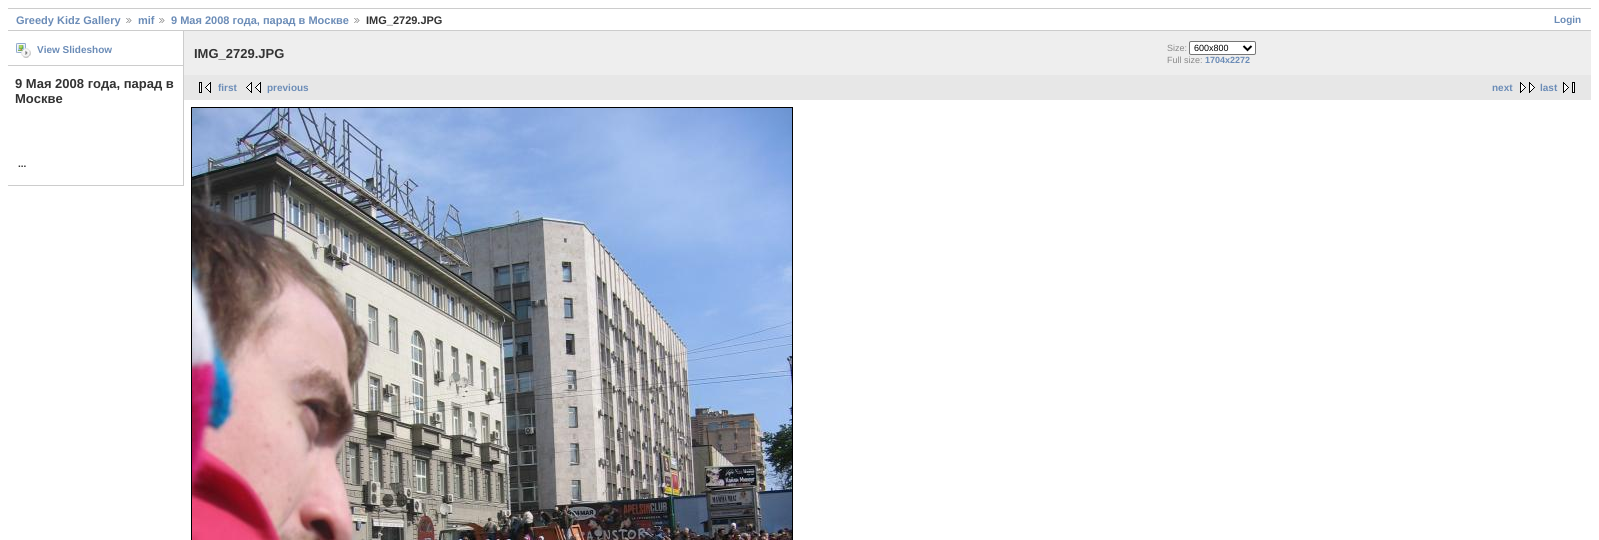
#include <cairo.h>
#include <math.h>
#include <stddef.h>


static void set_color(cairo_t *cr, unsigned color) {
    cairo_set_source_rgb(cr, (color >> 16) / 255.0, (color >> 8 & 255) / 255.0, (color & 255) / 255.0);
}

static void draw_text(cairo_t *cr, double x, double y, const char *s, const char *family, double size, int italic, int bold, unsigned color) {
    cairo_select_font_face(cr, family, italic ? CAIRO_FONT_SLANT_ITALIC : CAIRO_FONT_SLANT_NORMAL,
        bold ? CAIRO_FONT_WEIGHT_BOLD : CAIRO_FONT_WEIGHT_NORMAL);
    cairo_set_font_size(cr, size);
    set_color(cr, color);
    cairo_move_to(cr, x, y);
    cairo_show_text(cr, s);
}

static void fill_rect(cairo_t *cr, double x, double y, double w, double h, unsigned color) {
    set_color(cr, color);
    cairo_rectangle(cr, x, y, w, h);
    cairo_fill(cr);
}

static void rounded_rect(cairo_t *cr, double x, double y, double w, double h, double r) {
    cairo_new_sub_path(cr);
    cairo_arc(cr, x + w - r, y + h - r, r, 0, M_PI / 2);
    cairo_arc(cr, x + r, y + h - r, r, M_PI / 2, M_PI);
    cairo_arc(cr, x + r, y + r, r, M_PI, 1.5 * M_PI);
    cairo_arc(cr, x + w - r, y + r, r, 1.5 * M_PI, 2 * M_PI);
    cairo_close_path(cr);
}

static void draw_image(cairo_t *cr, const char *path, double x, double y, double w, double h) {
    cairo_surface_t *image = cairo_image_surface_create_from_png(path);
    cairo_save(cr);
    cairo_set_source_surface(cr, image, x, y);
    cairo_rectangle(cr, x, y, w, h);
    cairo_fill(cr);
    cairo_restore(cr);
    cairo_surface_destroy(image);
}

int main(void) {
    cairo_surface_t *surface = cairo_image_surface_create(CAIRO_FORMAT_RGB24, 1599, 540);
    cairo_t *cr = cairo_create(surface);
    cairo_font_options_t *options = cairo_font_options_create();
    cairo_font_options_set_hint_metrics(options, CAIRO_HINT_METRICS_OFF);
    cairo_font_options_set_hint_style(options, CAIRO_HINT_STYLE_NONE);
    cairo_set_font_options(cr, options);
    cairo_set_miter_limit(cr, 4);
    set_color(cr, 0xFFFFFF);
    cairo_paint(cr);
    fill_rect(cr, 8, 8, 1583, 1, 0xCCCCCC);
    fill_rect(cr, 8, 30, 1583, 1, 0xCCCCCC);
    draw_text(cr, 16, 24, "Greedy Kidz Gallery", "Liberation Sans", 11, 0, 1, 0x6B8CB7);
    draw_image(cr, "assets/img1.png", 126, 18, 6, 5);
    draw_text(cr, 138, 24, "mif", "Liberation Sans", 11, 0, 1, 0x6B8CB7);
    draw_image(cr, "assets/img1.png", 159, 18, 6, 5);
    draw_text(cr, 171, 24, "9 Мая 2008 года, парад в Москве", "Liberation Sans", 11, 0, 1, 0x6B8CB7);
    draw_image(cr, "assets/img1.png", 354, 18, 6, 5);
    draw_text(cr, 366, 24, "IMG_2729.JPG", "Liberation Sans", 11, 0, 1, 0x333333);
    draw_text(cr, 1554, 23, "Login", "Liberation Sans", 10, 0, 1, 0x6B8CB7);
    fill_rect(cr, 183, 31, 1, 155, 0xCCCCCC);
    fill_rect(cr, 8, 65, 175, 1, 0xCCCCCC);
    draw_image(cr, "assets/img2.png", 16, 43, 15, 15);
    draw_text(cr, 37, 53, "View Slideshow", "Liberation Sans", 10, 0, 1, 0x6B8CB7);
    fill_rect(cr, 8, 185, 175, 1, 0xCCCCCC);
    draw_text(cr, 15, 88, "9 Мая 2008 года, парад в", "Liberation Sans", 13, 0, 1, 0x333333);
    draw_text(cr, 15, 103, "Москве", "Liberation Sans", 13, 0, 1, 0x333333);
    draw_text(cr, 18, 167, "...", "Liberation Sans", 10, 0, 1, 0x333333);
    fill_rect(cr, 184, 31, 1407, 44, 0xEEEEEE);
    draw_text(cr, 194, 58, "IMG_2729.JPG", "Liberation Sans", 13, 0, 1, 0x333333);
    draw_text(cr, 1167, 51, "Size:", "Liberation Sans", 9, 0, 0, 0x888888);
    set_color(cr, 0xFFFFFF);
    rounded_rect(cr, 1189.5, 41.5, 66, 13, 1.5);
    cairo_fill_preserve(cr);
    set_color(cr, 0x767676);
    cairo_set_line_width(cr, 1);
    cairo_stroke(cr);
    cairo_new_path(cr);
    cairo_move_to(cr, 1243.5, 46);
    cairo_line_to(cr, 1247.5, 50);
    cairo_line_to(cr, 1251.5, 46);
    set_color(cr, 0x000000);
    cairo_set_line_width(cr, 2);
    cairo_stroke(cr);
    draw_text(cr, 1194, 51, "600x800", "Liberation Sans", 9, 0, 0, 0x000000);
    draw_text(cr, 1167, 63, "Full size:", "Liberation Sans", 9, 0, 0, 0x888888);
    draw_text(cr, 1205, 63, "1704x2272", "Liberation Sans", 9, 0, 1, 0x6B8CB7);
    fill_rect(cr, 184, 75, 1407, 25, 0xE7E7E7);
    draw_image(cr, "assets/img3.png", 199, 82, 12, 11);
    draw_text(cr, 218, 91, "first", "Liberation Sans", 10, 0, 1, 0x6B8CB7);
    draw_image(cr, "assets/img4.png", 246, 82, 15, 11);
    draw_text(cr, 267, 91, "previous", "Liberation Sans", 10, 0, 1, 0x6B8CB7);
    draw_text(cr, 1492, 91, "next", "Liberation Sans", 10, 0, 1, 0x6B8CB7);
    draw_image(cr, "assets/img5.png", 1520, 82, 15, 11);
    draw_text(cr, 1540, 91, "last", "Liberation Sans", 10, 0, 1, 0x6B8CB7);
    draw_image(cr, "assets/img6.png", 1563, 82, 12, 11);
    cairo_rectangle(cr, 191.5, 107.5, 601, 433);
    set_color(cr, 0x000000);
    cairo_set_line_width(cr, 1);
    cairo_stroke(cr);
    draw_image(cr, "assets/img7.png", 192, 108, 600, 432);
    cairo_surface_write_to_png(surface, "output.png");
    cairo_font_options_destroy(options);
    cairo_destroy(cr);
    cairo_surface_destroy(surface);
    return 0;
}
